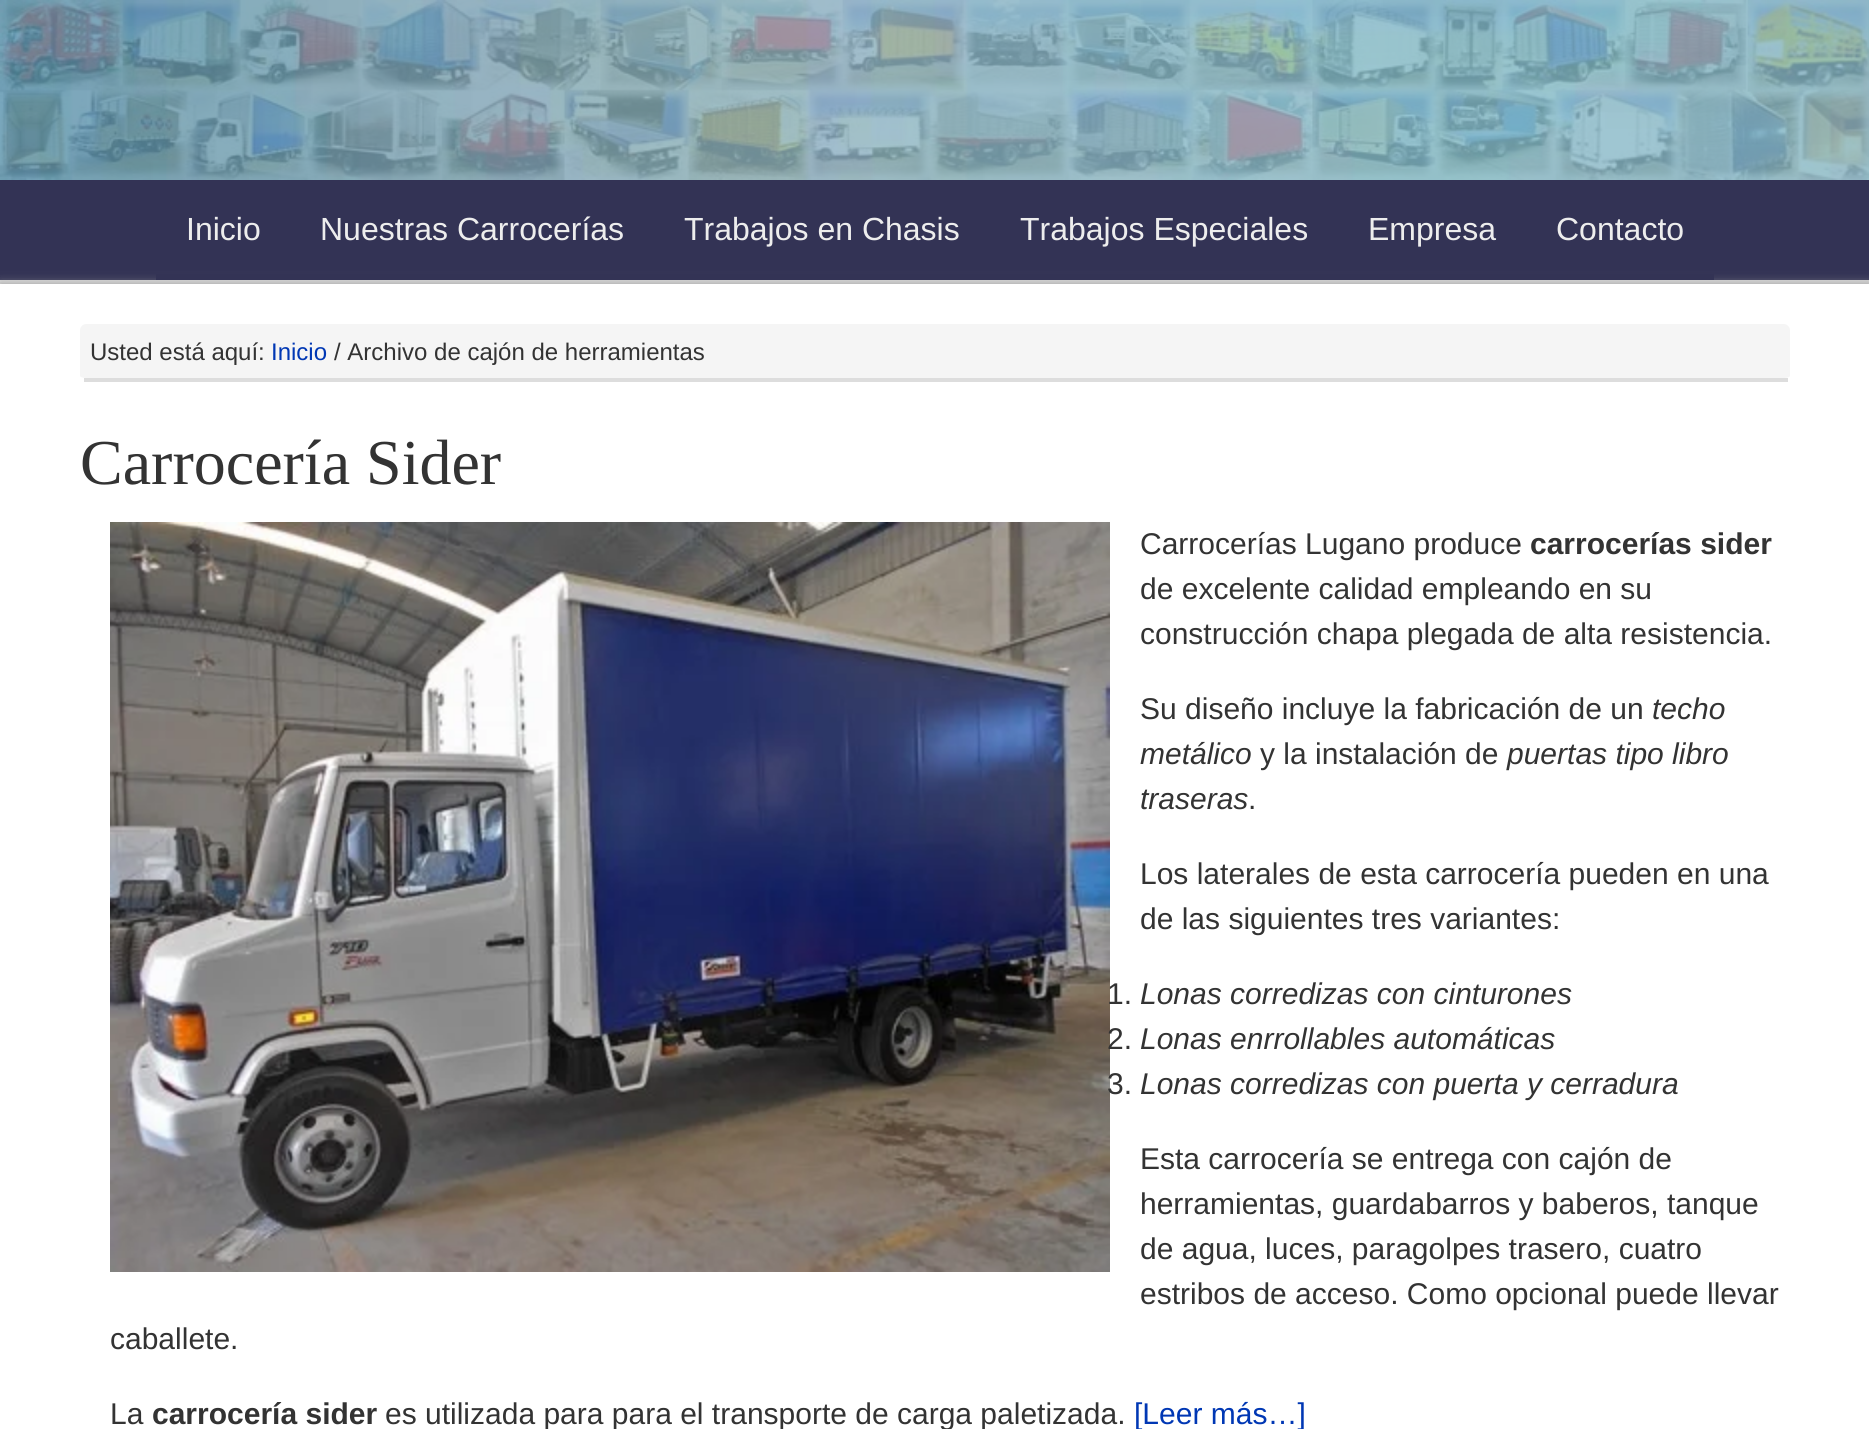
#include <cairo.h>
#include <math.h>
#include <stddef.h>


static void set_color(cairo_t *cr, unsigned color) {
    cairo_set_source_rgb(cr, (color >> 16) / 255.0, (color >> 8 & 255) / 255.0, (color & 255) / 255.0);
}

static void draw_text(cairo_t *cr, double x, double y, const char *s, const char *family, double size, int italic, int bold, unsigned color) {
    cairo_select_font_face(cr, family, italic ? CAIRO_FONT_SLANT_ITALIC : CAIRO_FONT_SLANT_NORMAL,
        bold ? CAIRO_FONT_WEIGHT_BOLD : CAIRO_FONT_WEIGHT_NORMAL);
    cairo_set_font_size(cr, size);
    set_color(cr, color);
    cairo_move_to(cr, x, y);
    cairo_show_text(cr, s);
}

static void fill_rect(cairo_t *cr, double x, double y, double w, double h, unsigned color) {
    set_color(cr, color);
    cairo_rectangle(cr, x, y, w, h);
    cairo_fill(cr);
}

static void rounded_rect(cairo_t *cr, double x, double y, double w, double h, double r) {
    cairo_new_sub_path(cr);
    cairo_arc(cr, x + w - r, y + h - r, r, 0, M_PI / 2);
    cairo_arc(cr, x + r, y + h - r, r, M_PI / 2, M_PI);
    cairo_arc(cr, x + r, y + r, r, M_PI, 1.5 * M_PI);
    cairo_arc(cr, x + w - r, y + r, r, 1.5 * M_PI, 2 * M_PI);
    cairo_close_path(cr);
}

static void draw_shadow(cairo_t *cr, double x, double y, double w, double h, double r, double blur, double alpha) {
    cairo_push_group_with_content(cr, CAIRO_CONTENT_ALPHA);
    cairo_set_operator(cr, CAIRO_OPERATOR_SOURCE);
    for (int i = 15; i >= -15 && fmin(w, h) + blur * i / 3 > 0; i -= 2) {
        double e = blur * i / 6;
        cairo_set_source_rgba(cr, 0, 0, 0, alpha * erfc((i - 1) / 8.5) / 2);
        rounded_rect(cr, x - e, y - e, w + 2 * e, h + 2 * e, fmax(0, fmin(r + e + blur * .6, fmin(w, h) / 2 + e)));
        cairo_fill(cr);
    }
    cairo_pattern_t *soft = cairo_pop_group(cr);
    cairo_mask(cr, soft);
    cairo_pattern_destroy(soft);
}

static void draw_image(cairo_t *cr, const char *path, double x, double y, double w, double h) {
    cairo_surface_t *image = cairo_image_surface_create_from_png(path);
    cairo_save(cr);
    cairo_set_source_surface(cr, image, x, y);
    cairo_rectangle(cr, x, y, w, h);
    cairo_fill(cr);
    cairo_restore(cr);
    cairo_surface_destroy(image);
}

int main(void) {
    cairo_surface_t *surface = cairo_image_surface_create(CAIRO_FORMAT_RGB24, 1869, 1429);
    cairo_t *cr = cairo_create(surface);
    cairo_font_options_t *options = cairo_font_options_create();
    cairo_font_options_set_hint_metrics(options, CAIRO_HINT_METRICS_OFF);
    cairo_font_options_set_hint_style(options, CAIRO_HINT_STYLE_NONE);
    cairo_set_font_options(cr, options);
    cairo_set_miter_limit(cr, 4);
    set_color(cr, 0xFFFFFF);
    cairo_paint(cr);
    draw_image(cr, "assets/img1.png", 0, 0, 1869, 180);
    draw_image(cr, "assets/img2.png", 0, 0, 1869, 180);
    fill_rect(cr, 0, 180, 1869, 100, 0x333355);
    fill_rect(cr, 0, 280, 1869, 4, 0xDDDDDD);
    set_color(cr, 0x999999);
    draw_shadow(cr, 0, 284, 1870, 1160, 0, 5, 1);
    fill_rect(cr, 156, 274, 1558, 6, 0x333355);
    draw_text(cr, 186, 240, "Inicio", "Liberation Sans", 32, 0, 0, 0xEDEDED);
    draw_text(cr, 320, 240, "Nuestras Carrocerías", "Liberation Sans", 32, 0, 0, 0xEDEDED);
    draw_text(cr, 684, 240, "Trabajos en Chasis", "Liberation Sans", 32, 0, 0, 0xEDEDED);
    draw_text(cr, 1020, 240, "Trabajos Especiales", "Liberation Sans", 32, 0, 0, 0xEDEDED);
    draw_text(cr, 1368, 240, "Empresa", "Liberation Sans", 32, 0, 0, 0xEDEDED);
    draw_text(cr, 1556, 240, "Contacto", "Liberation Sans", 32, 0, 0, 0xEDEDED);
    fill_rect(cr, 0, 284, 1869, 1145, 0xFFFFFF);
    set_color(cr, 0xF5F5F5);
    cairo_new_path(cr);
    cairo_move_to(cr, 86, 324);
    cairo_line_to(cr, 1784, 324);
    cairo_curve_to(cr, 1787, 324, 1790, 327, 1790, 330);
    cairo_line_to(cr, 1790, 376);
    cairo_curve_to(cr, 1790, 377, 1787, 378, 1784, 378);
    cairo_line_to(cr, 86, 378);
    cairo_curve_to(cr, 83, 378, 80, 377, 80, 376);
    cairo_line_to(cr, 80, 330);
    cairo_curve_to(cr, 80, 327, 83, 324, 86, 324);
    cairo_close_path(cr);
    cairo_fill(cr);
    fill_rect(cr, 84, 378, 1704, 4, 0xDDDDDD);
    draw_text(cr, 90, 360, "Usted está aquí:", "Liberation Sans", 24, 0, 0, 0x333333);
    draw_text(cr, 271, 360, "Inicio", "Liberation Sans", 24, 0, 0, 0x0037B4);
    draw_text(cr, 334, 360, "/ Archivo de cajón de herramientas", "Liberation Sans", 24, 0, 0, 0x333333);
    draw_text(cr, 80, 484, "Carrocería Sider", "Liberation Serif", 64, 0, 0, 0x333333);
    draw_image(cr, "assets/img3.png", 110, 522, 1000, 750);
    draw_text(cr, 1140, 554, "Carrocerías Lugano produce", "Liberation Sans", 30, 0, 0, 0x333333);
    draw_text(cr, 1530, 554, "carrocerías sider", "Liberation Sans", 30, 0, 1, 0x333333);
    draw_text(cr, 1140, 599, "de excelente calidad empleando en su", "Liberation Sans", 30, 0, 0, 0x333333);
    draw_text(cr, 1140, 644, "construcción chapa plegada de alta resistencia.", "Liberation Sans", 30, 0, 0, 0x333333);
    draw_text(cr, 1140, 719, "Su diseño incluye la fabricación de un", "Liberation Sans", 30, 0, 0, 0x333333);
    draw_text(cr, 1652, 719, "techo", "Liberation Sans", 30, 1, 0, 0x333333);
    draw_text(cr, 1140, 764, "metálico", "Liberation Sans", 30, 1, 0, 0x333333);
    draw_text(cr, 1260, 764, "y la instalación de", "Liberation Sans", 30, 0, 0, 0x333333);
    draw_text(cr, 1507, 764, "puertas tipo libro", "Liberation Sans", 30, 1, 0, 0x333333);
    draw_text(cr, 1140, 809, "traseras", "Liberation Sans", 30, 1, 0, 0x333333);
    draw_text(cr, 1248, 809, ".", "Liberation Sans", 30, 0, 0, 0x333333);
    draw_text(cr, 1140, 884, "Los laterales de esta carrocería pueden en una", "Liberation Sans", 30, 0, 0, 0x333333);
    draw_text(cr, 1140, 929, "de las siguientes tres variantes:", "Liberation Sans", 30, 0, 0, 0x333333);
    draw_text(cr, 1107, 1004, "1.", "Liberation Sans", 30, 0, 0, 0x333333);
    draw_text(cr, 1140, 1004, "Lonas corredizas con cinturones", "Liberation Sans", 30, 1, 0, 0x333333);
    draw_text(cr, 1107, 1049, "2.", "Liberation Sans", 30, 0, 0, 0x333333);
    draw_text(cr, 1140, 1049, "Lonas enrrollables automáticas", "Liberation Sans", 30, 1, 0, 0x333333);
    draw_text(cr, 1107, 1094, "3.", "Liberation Sans", 30, 0, 0, 0x333333);
    draw_text(cr, 1140, 1094, "Lonas corredizas con puerta y cerradura", "Liberation Sans", 30, 1, 0, 0x333333);
    draw_text(cr, 1140, 1169, "Esta carrocería se entrega con cajón de", "Liberation Sans", 30, 0, 0, 0x333333);
    draw_text(cr, 1140, 1214, "herramientas, guardabarros y baberos, tanque", "Liberation Sans", 30, 0, 0, 0x333333);
    draw_text(cr, 1140, 1259, "de agua, luces, paragolpes trasero, cuatro", "Liberation Sans", 30, 0, 0, 0x333333);
    draw_text(cr, 1140, 1304, "estribos de acceso. Como opcional puede llevar", "Liberation Sans", 30, 0, 0, 0x333333);
    draw_text(cr, 110, 1349, "caballete.", "Liberation Sans", 30, 0, 0, 0x333333);
    draw_text(cr, 110, 1424, "La", "Liberation Sans", 30, 0, 0, 0x333333);
    draw_text(cr, 152, 1424, "carrocería sider", "Liberation Sans", 30, 0, 1, 0x333333);
    draw_text(cr, 385, 1424, "es utilizada para para el transporte de carga paletizada.", "Liberation Sans", 30, 0, 0, 0x333333);
    draw_text(cr, 1134, 1424, "[Leer más…]", "Liberation Sans", 30, 0, 0, 0x0037B4);
    cairo_surface_write_to_png(surface, "output.png");
    cairo_font_options_destroy(options);
    cairo_destroy(cr);
    cairo_surface_destroy(surface);
    return 0;
}
